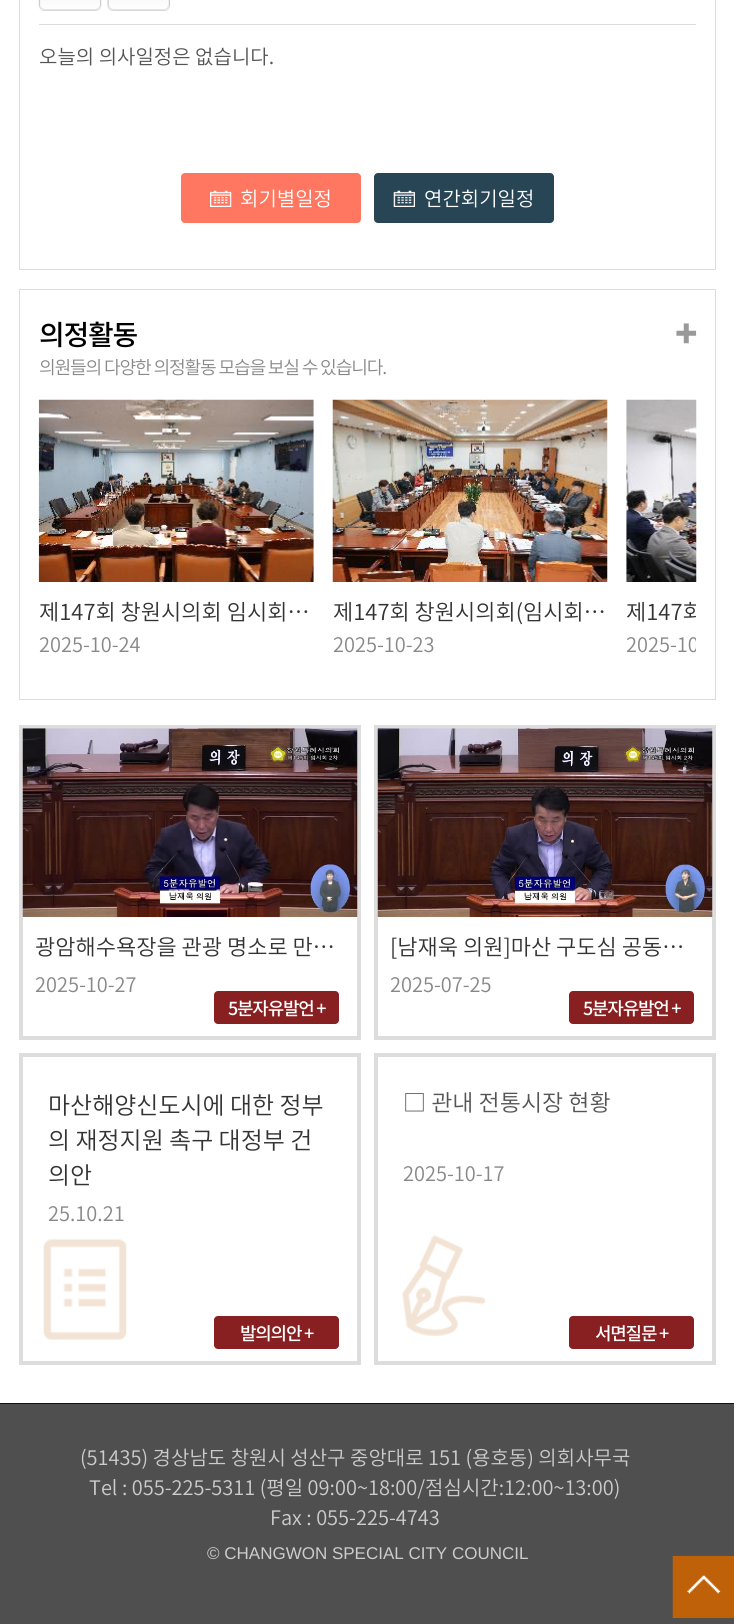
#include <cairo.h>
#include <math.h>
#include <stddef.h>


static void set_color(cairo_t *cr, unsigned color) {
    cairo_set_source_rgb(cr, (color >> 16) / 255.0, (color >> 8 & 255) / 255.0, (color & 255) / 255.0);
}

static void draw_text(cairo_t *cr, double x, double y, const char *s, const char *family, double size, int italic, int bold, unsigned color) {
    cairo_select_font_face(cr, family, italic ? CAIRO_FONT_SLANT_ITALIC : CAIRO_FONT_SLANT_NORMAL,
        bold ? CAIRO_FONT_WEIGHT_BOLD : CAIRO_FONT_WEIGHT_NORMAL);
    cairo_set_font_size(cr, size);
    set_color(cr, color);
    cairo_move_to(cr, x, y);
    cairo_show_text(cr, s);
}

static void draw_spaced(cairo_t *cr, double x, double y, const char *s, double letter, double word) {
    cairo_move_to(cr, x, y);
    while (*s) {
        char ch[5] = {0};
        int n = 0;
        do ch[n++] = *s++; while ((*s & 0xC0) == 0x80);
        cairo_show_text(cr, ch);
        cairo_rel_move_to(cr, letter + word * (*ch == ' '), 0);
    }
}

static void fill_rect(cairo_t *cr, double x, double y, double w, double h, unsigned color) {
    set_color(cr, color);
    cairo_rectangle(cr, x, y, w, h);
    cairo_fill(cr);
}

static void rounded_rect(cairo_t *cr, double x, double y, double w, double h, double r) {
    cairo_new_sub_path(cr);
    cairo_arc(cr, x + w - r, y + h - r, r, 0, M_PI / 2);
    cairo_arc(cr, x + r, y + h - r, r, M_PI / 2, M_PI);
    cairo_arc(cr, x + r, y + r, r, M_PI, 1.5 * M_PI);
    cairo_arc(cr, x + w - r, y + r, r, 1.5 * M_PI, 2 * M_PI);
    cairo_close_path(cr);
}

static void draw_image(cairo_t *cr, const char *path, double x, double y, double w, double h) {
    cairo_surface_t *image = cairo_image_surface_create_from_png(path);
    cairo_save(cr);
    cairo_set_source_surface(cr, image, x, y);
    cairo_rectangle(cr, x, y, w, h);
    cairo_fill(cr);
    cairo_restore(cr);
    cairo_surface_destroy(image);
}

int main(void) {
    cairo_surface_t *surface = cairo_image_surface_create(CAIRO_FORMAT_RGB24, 734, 1624);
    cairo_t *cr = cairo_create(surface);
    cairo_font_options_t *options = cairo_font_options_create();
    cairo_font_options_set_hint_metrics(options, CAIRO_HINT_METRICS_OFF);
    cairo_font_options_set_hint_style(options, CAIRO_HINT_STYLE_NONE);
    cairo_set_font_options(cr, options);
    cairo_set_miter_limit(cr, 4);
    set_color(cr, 0xFFFFFF);
    cairo_paint(cr);
    cairo_rectangle(cr, 19.5, -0.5, 696, 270);
    set_color(cr, 0xDDDDDD);
    cairo_set_line_width(cr, 1);
    cairo_stroke(cr);
    fill_rect(cr, 39, 24, 657, 1, 0xDDDDDD);
    draw_image(cr, "assets/img1.png", 38, 0, 64, 11);
    draw_image(cr, "assets/img2.png", 107, 0, 63, 11);
    draw_text(cr, 39, 64, "오늘의 의사일정은 없습니다.", "Noto Sans KR Light", 20, 0, 0, 0x555555);
    set_color(cr, 0xFF7761);
    rounded_rect(cr, 181, 173, 180, 50, 4);
    cairo_fill(cr);
    draw_image(cr, "assets/img3.png", 210, 190, 22, 17);
    draw_text(cr, 240, 206, "회기별일정", "Noto Sans KR Light", 20, 0, 0, 0xFFFFFF);
    set_color(cr, 0x274555);
    rounded_rect(cr, 374, 173, 180, 50, 4);
    cairo_fill(cr);
    draw_image(cr, "assets/img4.png", 393, 190, 22, 17);
    draw_text(cr, 424, 206, "연간회기일정", "Noto Sans KR Light", 20, 0, 0, 0xFFFFFF);
    cairo_rectangle(cr, 19.5, 289.5, 696, 410);
    set_color(cr, 0xDDDDDD);
    cairo_stroke(cr);
    cairo_select_font_face(cr, "Noto Sans KR Medium", CAIRO_FONT_SLANT_NORMAL, CAIRO_FONT_WEIGHT_NORMAL);
    cairo_set_font_size(cr, 28);
    set_color(cr, 0x000000);
    draw_spaced(cr, 39, 345, "의정활동", -1.25, 0);
    cairo_select_font_face(cr, "Noto Sans KR Light", CAIRO_FONT_SLANT_NORMAL, CAIRO_FONT_WEIGHT_NORMAL);
    cairo_set_font_size(cr, 18.25);
    set_color(cr, 0x888888);
    draw_spaced(cr, 39, 374, "의원들의 다양한 의정활동 모습을 보실 수 있습니다.", -1.25, 0);
    draw_image(cr, "assets/img5.png", 676, 323, 21, 21);
    draw_image(cr, "assets/img6.png", 38, 399, 276, 183);
    draw_text(cr, 39, 620, "제147회 창원시의회 임시회…", "Noto Sans KR Light", 22, 0, 0, 0x333333);
    draw_text(cr, 39, 652, "2025-10-24", "Noto Sans KR Light", 20, 0, 0, 0x888888);
    draw_image(cr, "assets/img7.png", 332, 399, 276, 183);
    draw_text(cr, 333, 620, "제147회 창원시의회(임시회…", "Noto Sans KR Light", 22, 0, 0, 0x333333);
    draw_text(cr, 333, 652, "2025-10-23", "Noto Sans KR Light", 20, 0, 0, 0x888888);
    draw_image(cr, "assets/img8.png", 626, 399, 71, 183);
    cairo_save(cr);
    cairo_rectangle(cr, 626, 595, 70, 33);
    cairo_clip(cr);
    draw_text(cr, 626, 620, "제147회", "Noto Sans KR Light", 22, 0, 0, 0x333333);
    cairo_restore(cr);
    cairo_save(cr);
    cairo_rectangle(cr, 39, 400, 657, 259);
    cairo_clip(cr);
    draw_text(cr, 626, 652, "2025-10", "Noto Sans KR Light", 20, 0, 0, 0x888888);
    cairo_restore(cr);
    cairo_rectangle(cr, 21, 727, 338, 311);
    set_color(cr, 0xDDDDDD);
    cairo_set_line_width(cr, 4);
    cairo_stroke(cr);
    draw_image(cr, "assets/img9.png", 22, 728, 336, 189);
    draw_text(cr, 35, 955, "광암해수욕장을 관광 명소로 만…", "Noto Sans KR Light", 22, 0, 0, 0x333333);
    draw_text(cr, 35, 992, "2025-10-27", "Noto Sans KR Light", 20, 0, 0, 0x888888);
    set_color(cr, 0x882021);
    rounded_rect(cr, 214, 991, 125, 33, 4);
    cairo_fill(cr);
    cairo_select_font_face(cr, "Noto Sans KR Medium", CAIRO_FONT_SLANT_NORMAL, CAIRO_FONT_WEIGHT_NORMAL);
    cairo_set_font_size(cr, 18);
    set_color(cr, 0xFFFFFF);
    draw_spaced(cr, 228, 1015, "5분자유발언 +", -1.25, 0);
    cairo_rectangle(cr, 376, 727, 338, 311);
    set_color(cr, 0xDDDDDD);
    cairo_stroke(cr);
    draw_image(cr, "assets/img10.png", 377, 728, 336, 189);
    draw_text(cr, 390, 955, "[남재욱 의원]마산 구도심 공동…", "Noto Sans KR Light", 22, 0, 0, 0x333333);
    draw_text(cr, 390, 992, "2025-07-25", "Noto Sans KR Light", 20, 0, 0, 0x888888);
    set_color(cr, 0x882021);
    rounded_rect(cr, 569, 991, 125, 33, 4);
    cairo_fill(cr);
    cairo_select_font_face(cr, "Noto Sans KR Medium", CAIRO_FONT_SLANT_NORMAL, CAIRO_FONT_WEIGHT_NORMAL);
    cairo_set_font_size(cr, 18);
    set_color(cr, 0xFFFFFF);
    draw_spaced(cr, 583, 1015, "5분자유발언 +", -1.25, 0);
    draw_image(cr, "assets/img11.png", 43, 1239, 84, 101);
    cairo_rectangle(cr, 21, 1055, 338, 308);
    set_color(cr, 0xDDDDDD);
    cairo_stroke(cr);
    draw_text(cr, 48, 1114, "마산해양신도시에 대한 정부", "Noto Sans KR Light", 24, 0, 0, 0x333333);
    draw_text(cr, 48, 1149, "의 재정지원 촉구 대정부 건", "Noto Sans KR Light", 24, 0, 0, 0x333333);
    draw_text(cr, 48, 1184, "의안", "Noto Sans KR Light", 24, 0, 0, 0x333333);
    draw_text(cr, 48, 1221, "25.10.21", "Noto Sans KR Light", 20, 0, 0, 0x888888);
    set_color(cr, 0x882021);
    rounded_rect(cr, 214, 1316, 125, 33, 4);
    cairo_fill(cr);
    cairo_select_font_face(cr, "Noto Sans KR Medium", CAIRO_FONT_SLANT_NORMAL, CAIRO_FONT_WEIGHT_NORMAL);
    cairo_set_font_size(cr, 18);
    set_color(cr, 0xFFFFFF);
    draw_spaced(cr, 240, 1340, "발의의안 +", -1.25, 0);
    draw_image(cr, "assets/img12.png", 402, 1235, 83, 101);
    cairo_rectangle(cr, 376, 1055, 338, 308);
    set_color(cr, 0xDDDDDD);
    cairo_stroke(cr);
    draw_text(cr, 403, 1111, "□ 관내 전통시장 현황", "Noto Sans KR Light", 23, 0, 0, 0x555555);
    draw_text(cr, 403, 1181, "2025-10-17", "Noto Sans KR Light", 20, 0, 0, 0x888888);
    set_color(cr, 0x882021);
    rounded_rect(cr, 569, 1316, 125, 33, 4);
    cairo_fill(cr);
    cairo_select_font_face(cr, "Noto Sans KR Medium", CAIRO_FONT_SLANT_NORMAL, CAIRO_FONT_WEIGHT_NORMAL);
    cairo_set_font_size(cr, 18);
    set_color(cr, 0xFFFFFF);
    draw_spaced(cr, 595, 1340, "서면질문 +", -1.25, 0);
    fill_rect(cr, 0, 1404, 734, 220, 0x4F4F4F);
    fill_rect(cr, 0, 1403, 734, 1, 0x111111);
    draw_text(cr, 80, 1465, "(51435) 경상남도 창원시 성산구 중앙대로 151 (용호동) 의회사무국", "Noto Sans KR Light", 20, 0, 0, 0xCCCCCC);
    draw_text(cr, 89, 1495, "Tel : 055-225-5311 (평일 09:00~18:00/점심시간:12:00~13:00)", "Noto Sans KR Light", 20, 0, 0, 0xCCCCCC);
    draw_text(cr, 270, 1525, "Fax : 055-225-4743", "Noto Sans KR Light", 20, 0, 0, 0xCCCCCC);
    draw_text(cr, 207, 1559, "© CHANGWON SPECIAL CITY COUNCIL", "Liberation Sans", 17, 0, 0, 0xCCCCCC);
    draw_image(cr, "assets/img13.png", 672, 1555, 62, 64);
    cairo_surface_write_to_png(surface, "output.png");
    cairo_font_options_destroy(options);
    cairo_destroy(cr);
    cairo_surface_destroy(surface);
    return 0;
}
